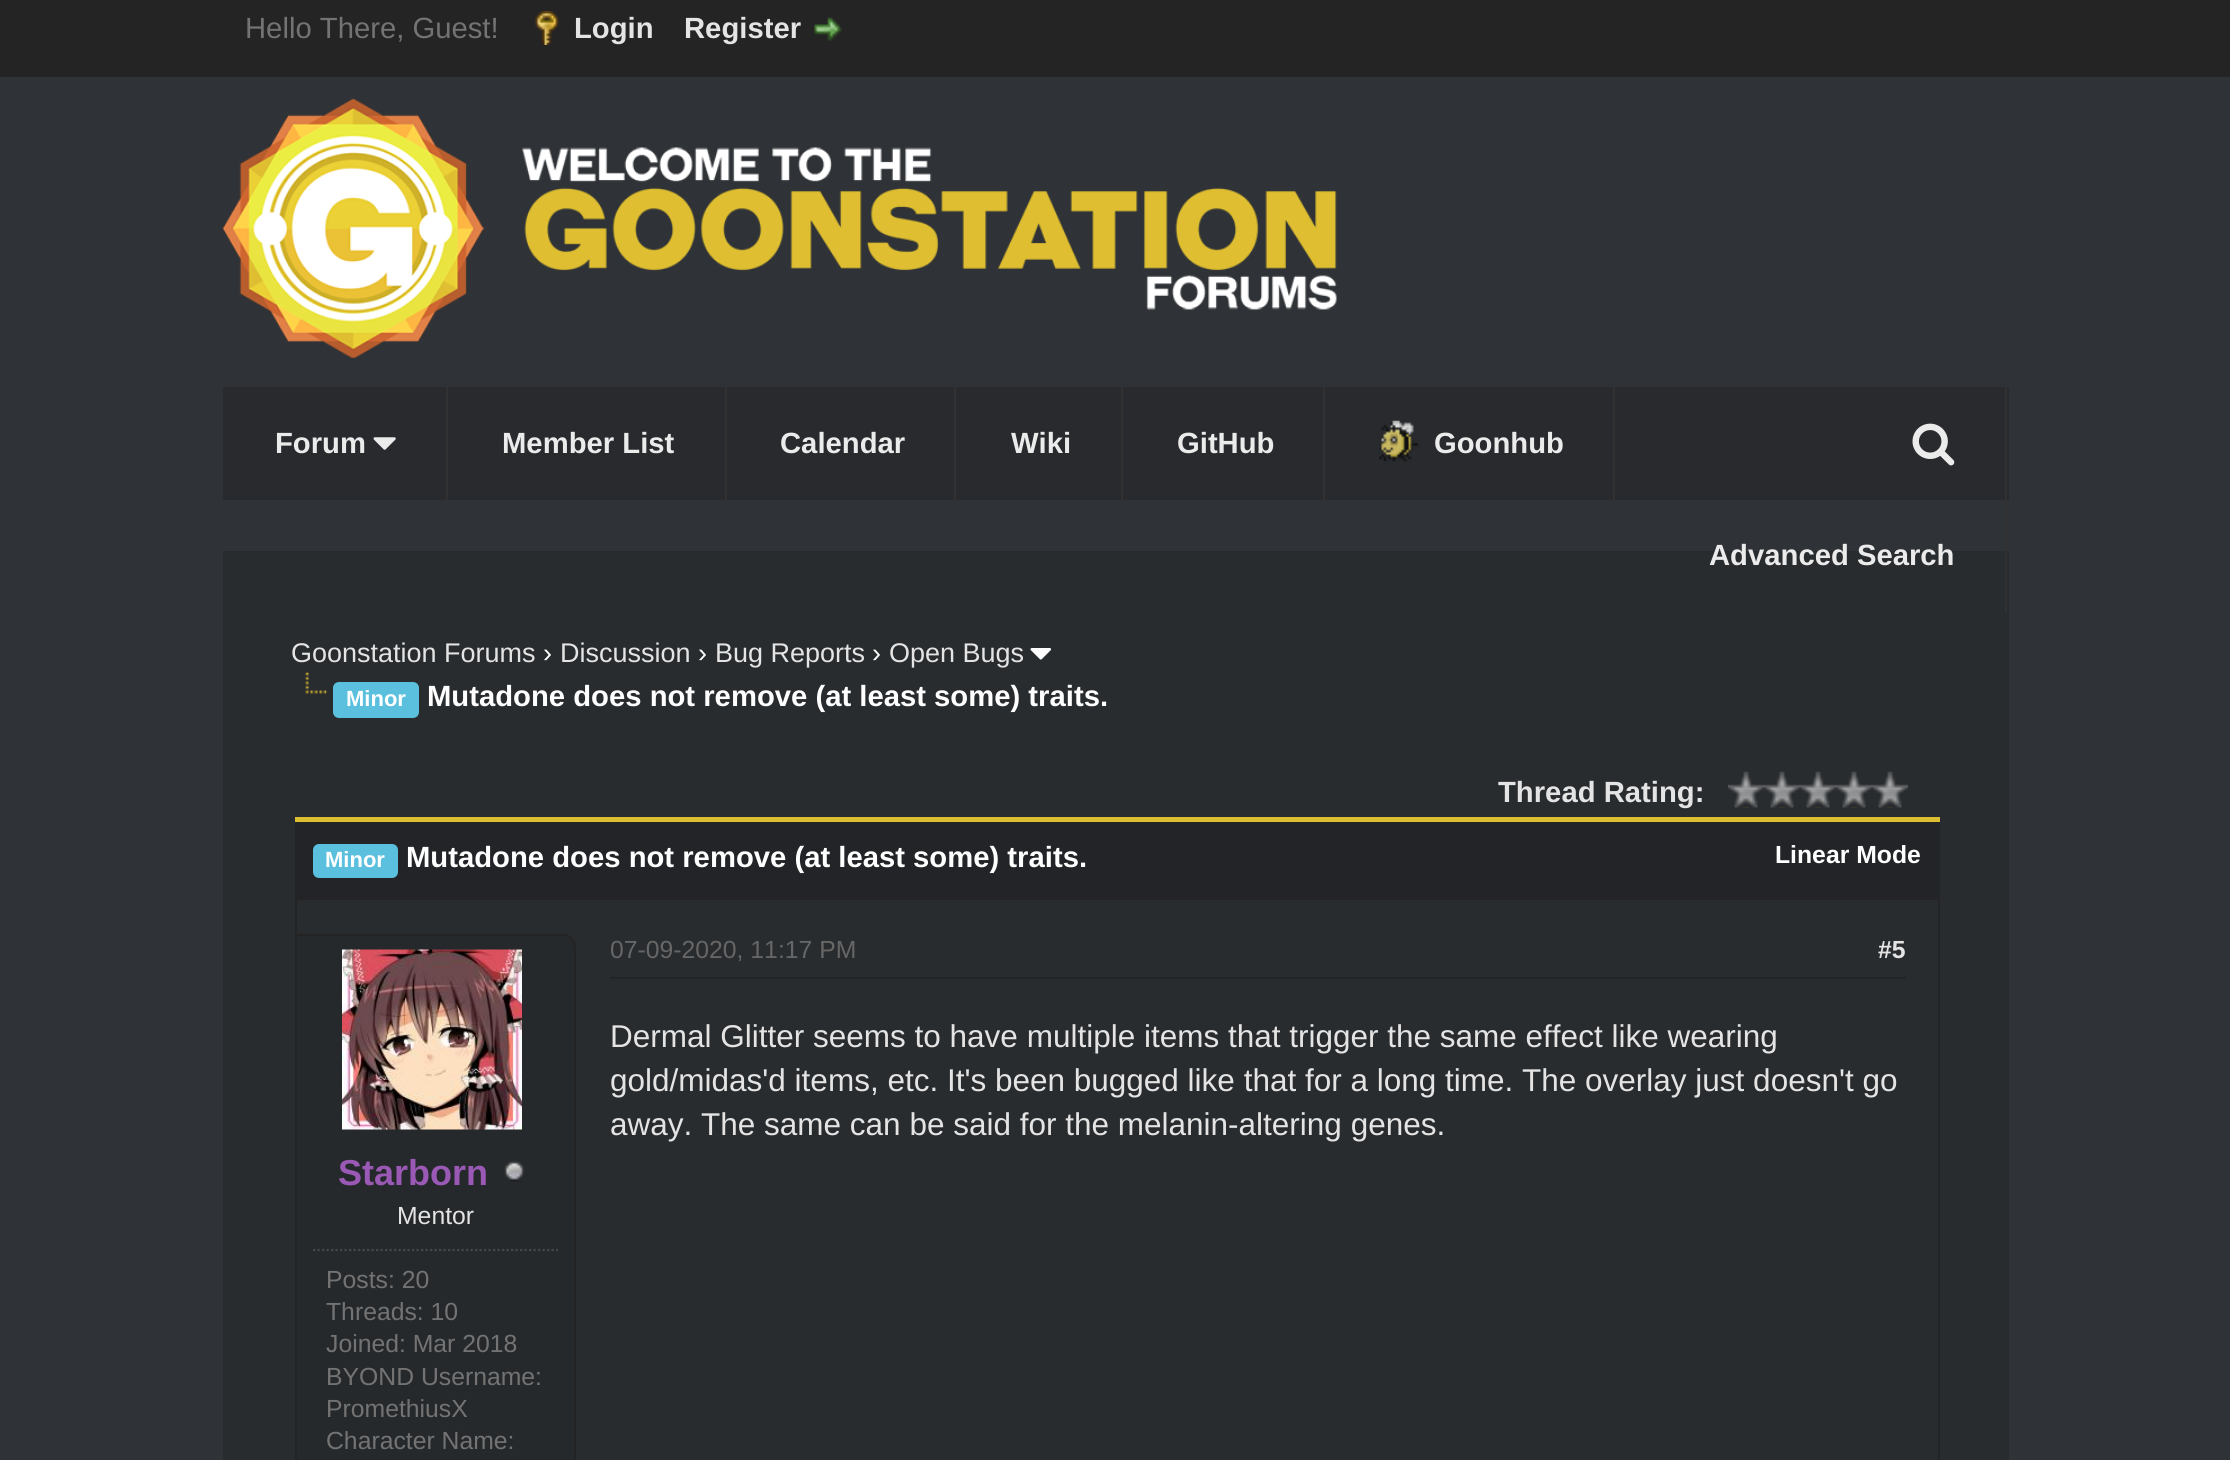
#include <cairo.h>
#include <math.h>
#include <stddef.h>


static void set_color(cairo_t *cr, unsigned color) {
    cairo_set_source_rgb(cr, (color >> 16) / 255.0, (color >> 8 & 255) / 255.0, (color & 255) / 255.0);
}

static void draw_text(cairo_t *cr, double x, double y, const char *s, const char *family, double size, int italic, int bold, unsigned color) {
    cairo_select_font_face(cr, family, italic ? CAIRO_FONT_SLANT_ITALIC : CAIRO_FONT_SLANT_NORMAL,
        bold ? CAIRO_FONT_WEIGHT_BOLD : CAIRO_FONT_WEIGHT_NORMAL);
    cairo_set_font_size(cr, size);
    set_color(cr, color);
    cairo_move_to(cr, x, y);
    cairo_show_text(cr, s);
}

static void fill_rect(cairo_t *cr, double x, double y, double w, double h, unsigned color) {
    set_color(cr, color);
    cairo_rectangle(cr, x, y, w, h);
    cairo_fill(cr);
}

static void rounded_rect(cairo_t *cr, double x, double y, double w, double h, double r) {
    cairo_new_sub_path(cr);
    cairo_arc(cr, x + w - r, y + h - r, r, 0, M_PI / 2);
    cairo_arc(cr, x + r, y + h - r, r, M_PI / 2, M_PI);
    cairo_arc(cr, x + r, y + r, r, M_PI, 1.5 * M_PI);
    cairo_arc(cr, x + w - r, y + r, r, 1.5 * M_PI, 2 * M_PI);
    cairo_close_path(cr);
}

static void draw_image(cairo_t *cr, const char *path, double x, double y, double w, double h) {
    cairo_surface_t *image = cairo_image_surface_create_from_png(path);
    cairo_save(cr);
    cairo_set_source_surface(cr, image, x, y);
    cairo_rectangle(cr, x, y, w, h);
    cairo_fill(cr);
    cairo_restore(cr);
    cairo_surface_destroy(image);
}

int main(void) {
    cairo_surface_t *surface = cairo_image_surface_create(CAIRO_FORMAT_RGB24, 2230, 1460);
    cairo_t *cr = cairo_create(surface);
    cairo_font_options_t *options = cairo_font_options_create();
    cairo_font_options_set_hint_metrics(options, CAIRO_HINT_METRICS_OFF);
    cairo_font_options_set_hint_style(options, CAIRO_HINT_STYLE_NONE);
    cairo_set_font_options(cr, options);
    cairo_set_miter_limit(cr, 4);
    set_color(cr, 0x2F3236);
    cairo_paint(cr);
    fill_rect(cr, 0, 0, 2230, 77, 0x242424);
    draw_text(cr, 245, 38, "Hello There, Guest!", "Liberation Sans", 29.25, 0, 0, 0x737373);
    draw_image(cr, "assets/img1.png", 535, 11, 24, 34);
    draw_text(cr, 574, 38, "Login", "Liberation Sans", 29.25, 0, 1, 0xE4E4E4);
    draw_text(cr, 684, 38, "Register", "Liberation Sans", 29.25, 0, 1, 0xE4E4E4);
    draw_image(cr, "assets/img2.png", 814, 17, 28, 24);
    draw_image(cr, "assets/img3.png", 222, 99, 1115, 259);
    fill_rect(cr, 223, 387, 1786, 113, 0x282A2E);
    fill_rect(cr, 446, 387, 2, 113, 0x313131);
    draw_text(cr, 275, 453, "Forum", "Liberation Sans", 29.25, 0, 1, 0xEBEBEB);
    draw_image(cr, "assets/img4.png", 373, 437, 23, 13);
    fill_rect(cr, 725, 387, 2, 113, 0x313131);
    draw_text(cr, 502, 453, "Member List", "Liberation Sans", 29.25, 0, 1, 0xEBEBEB);
    fill_rect(cr, 954, 387, 2, 113, 0x313131);
    draw_text(cr, 780, 453, "Calendar", "Liberation Sans", 29.25, 0, 1, 0xEBEBEB);
    fill_rect(cr, 1121, 387, 2, 113, 0x313131);
    draw_text(cr, 1011, 453, "Wiki", "Liberation Sans", 29.25, 0, 1, 0xEBEBEB);
    fill_rect(cr, 1323, 387, 2, 113, 0x313131);
    draw_text(cr, 1177, 453, "GitHub", "Liberation Sans", 29.25, 0, 1, 0xEBEBEB);
    fill_rect(cr, 1613, 387, 2, 113, 0x313131);
    draw_image(cr, "assets/img5.png", 1379, 420, 41, 42);
    draw_text(cr, 1434, 453, "Goonhub", "Liberation Sans", 29.25, 0, 1, 0xEBEBEB);
    fill_rect(cr, 223, 551, 1786, 909, 0x292C2F);
    fill_rect(cr, 2005, 387, 2, 225, 0x313131);
    draw_image(cr, "assets/img6.png", 1912, 423, 43, 43);
    draw_text(cr, 1709, 565, "Advanced Search", "Liberation Sans", 29.25, 0, 1, 0xEBEBEB);
    draw_text(cr, 291, 662, "Goonstation Forums", "Liberation Sans", 27, 0, 0, 0xE4E4E4);
    draw_text(cr, 543, 662, "›", "Liberation Sans", 27, 0, 0, 0xFFFFFF);
    draw_text(cr, 560, 662, "Discussion", "Liberation Sans", 27, 0, 0, 0xE4E4E4);
    draw_text(cr, 698, 662, "›", "Liberation Sans", 27, 0, 0, 0xFFFFFF);
    draw_text(cr, 715, 662, "Bug Reports", "Liberation Sans", 27, 0, 0, 0xE4E4E4);
    draw_text(cr, 872, 662, "›", "Liberation Sans", 27, 0, 0, 0xFFFFFF);
    draw_text(cr, 889, 662, "Open Bugs", "Liberation Sans", 27, 0, 0, 0xE4E4E4);
    draw_image(cr, "assets/img7.png", 1030, 648, 22, 12);
    draw_image(cr, "assets/img8.png", 305, 672, 22, 22);
    set_color(cr, 0x5BC0DE);
    rounded_rect(cr, 333, 682, 86, 36, 6);
    cairo_fill(cr);
    draw_text(cr, 346, 706, "Minor", "Liberation Sans", 22, 0, 1, 0xFFFFFF);
    draw_text(cr, 427, 706, "Mutadone does not remove (at least some) traits.", "Liberation Sans", 29.25, 0, 1, 0xFFFFFF);
    draw_text(cr, 1498, 802, "Thread Rating:", "Liberation Sans", 29.25, 0, 1, 0xE4E4E4);
    draw_image(cr, "assets/img9.png", 1728, 771, 180, 37);
    fill_rect(cr, 295, 822, 1645, 76, 0x222427);
    fill_rect(cr, 295, 817, 1645, 5, 0xDEBE31);
    set_color(cr, 0x5BC0DE);
    rounded_rect(cr, 313, 844, 85, 34, 6);
    cairo_fill(cr);
    draw_text(cr, 325, 867, "Minor", "Liberation Sans", 22, 0, 1, 0xFFFFFF);
    draw_text(cr, 406, 867, "Mutadone does not remove (at least some) traits.", "Liberation Sans", 29.25, 0, 1, 0xFFFFFF);
    draw_text(cr, 1775, 863, "Linear Mode", "Liberation Sans", 24.75, 0, 1, 0xFFFFFF);
    cairo_rectangle(cr, 296, 899, 1643, 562);
    set_color(cr, 0x242424);
    cairo_stroke(cr);
    fill_rect(cr, 610, 977, 1296, 2, 0x242424);
    draw_text(cr, 610, 958, "07-09-2020, 11:17 PM", "Liberation Sans", 24.75, 0, 0, 0x666666);
    draw_text(cr, 1878, 958, "#5", "Liberation Sans", 24.75, 0, 1, 0xE4E4E4);
    draw_text(cr, 610, 1047, "Dermal Glitter seems to have multiple items that trigger the same effect like wearing", "Liberation Sans", 31.5, 0, 0, 0xE4E4E4);
    draw_text(cr, 610, 1091, "gold/midas'd items, etc. It's been bugged like that for a long time. The overlay just doesn't go", "Liberation Sans", 31.5, 0, 0, 0xE4E4E4);
    draw_text(cr, 610, 1135, "away. The same can be said for the melanin-altering genes.", "Liberation Sans", 31.5, 0, 0, 0xE4E4E4);
    set_color(cr, 0x26292C);
    cairo_new_path(cr);
    cairo_move_to(cr, 297, 934);
    cairo_line_to(cr, 562, 934);
    cairo_curve_to(cr, 569.5, 934, 576, 940.5, 576, 948);
    cairo_line_to(cr, 576, 1460);
    cairo_curve_to(cr, 576, 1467.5, 569.5, 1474, 562, 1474);
    cairo_line_to(cr, 297, 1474);
    cairo_close_path(cr);
    cairo_fill(cr);
    set_color(cr, 0x242424);
    cairo_set_fill_rule(cr, CAIRO_FILL_RULE_EVEN_ODD);
    cairo_new_path(cr);
    cairo_move_to(cr, 297, 934);
    cairo_line_to(cr, 562, 934);
    cairo_curve_to(cr, 570, 934, 576, 940, 576, 947);
    cairo_line_to(cr, 576, 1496);
    cairo_curve_to(cr, 576, 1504, 570, 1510, 562, 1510);
    cairo_line_to(cr, 297, 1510);
    cairo_close_path(cr);
    cairo_move_to(cr, 297, 936);
    cairo_line_to(cr, 562, 936);
    cairo_curve_to(cr, 569, 936, 574, 941, 574, 947);
    cairo_line_to(cr, 574, 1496);
    cairo_curve_to(cr, 574, 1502, 569, 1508, 562, 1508);
    cairo_line_to(cr, 297, 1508);
    cairo_close_path(cr);
    cairo_fill(cr);
    draw_image(cr, "assets/img10.png", 342, 949, 180, 181);
    draw_text(cr, 338, 1185, "Starborn", "Liberation Sans", 36, 0, 1, 0x9B59B6);
    draw_image(cr, "assets/img11.png", 504, 1160, 21, 22);
    draw_text(cr, 397, 1224, "Mentor", "Liberation Sans", 24.75, 0, 0, 0xE4E4E4);
    cairo_new_path(cr);
    cairo_move_to(cr, 313, 1250);
    cairo_line_to(cr, 558, 1250);
    set_color(cr, 0x464646);
    cairo_set_line_width(cr, 2.2);
    cairo_set_dash(cr, (double[]){2.25, 2.25}, 2, 0);
    cairo_stroke(cr);
    draw_text(cr, 326, 1288, "Posts: 20", "Liberation Sans", 24.75, 0, 0, 0x737373);
    draw_text(cr, 326, 1320, "Threads: 10", "Liberation Sans", 24.75, 0, 0, 0x737373);
    draw_text(cr, 326, 1352, "Joined: Mar 2018", "Liberation Sans", 24.75, 0, 0, 0x737373);
    draw_text(cr, 326, 1385, "BYOND Username:", "Liberation Sans", 24.75, 0, 0, 0x737373);
    draw_text(cr, 326, 1417, "PromethiusX", "Liberation Sans", 24.75, 0, 0, 0x737373);
    draw_text(cr, 326, 1449, "Character Name:", "Liberation Sans", 24.75, 0, 0, 0x737373);
    cairo_surface_write_to_png(surface, "output.png");
    cairo_font_options_destroy(options);
    cairo_destroy(cr);
    cairo_surface_destroy(surface);
    return 0;
}
